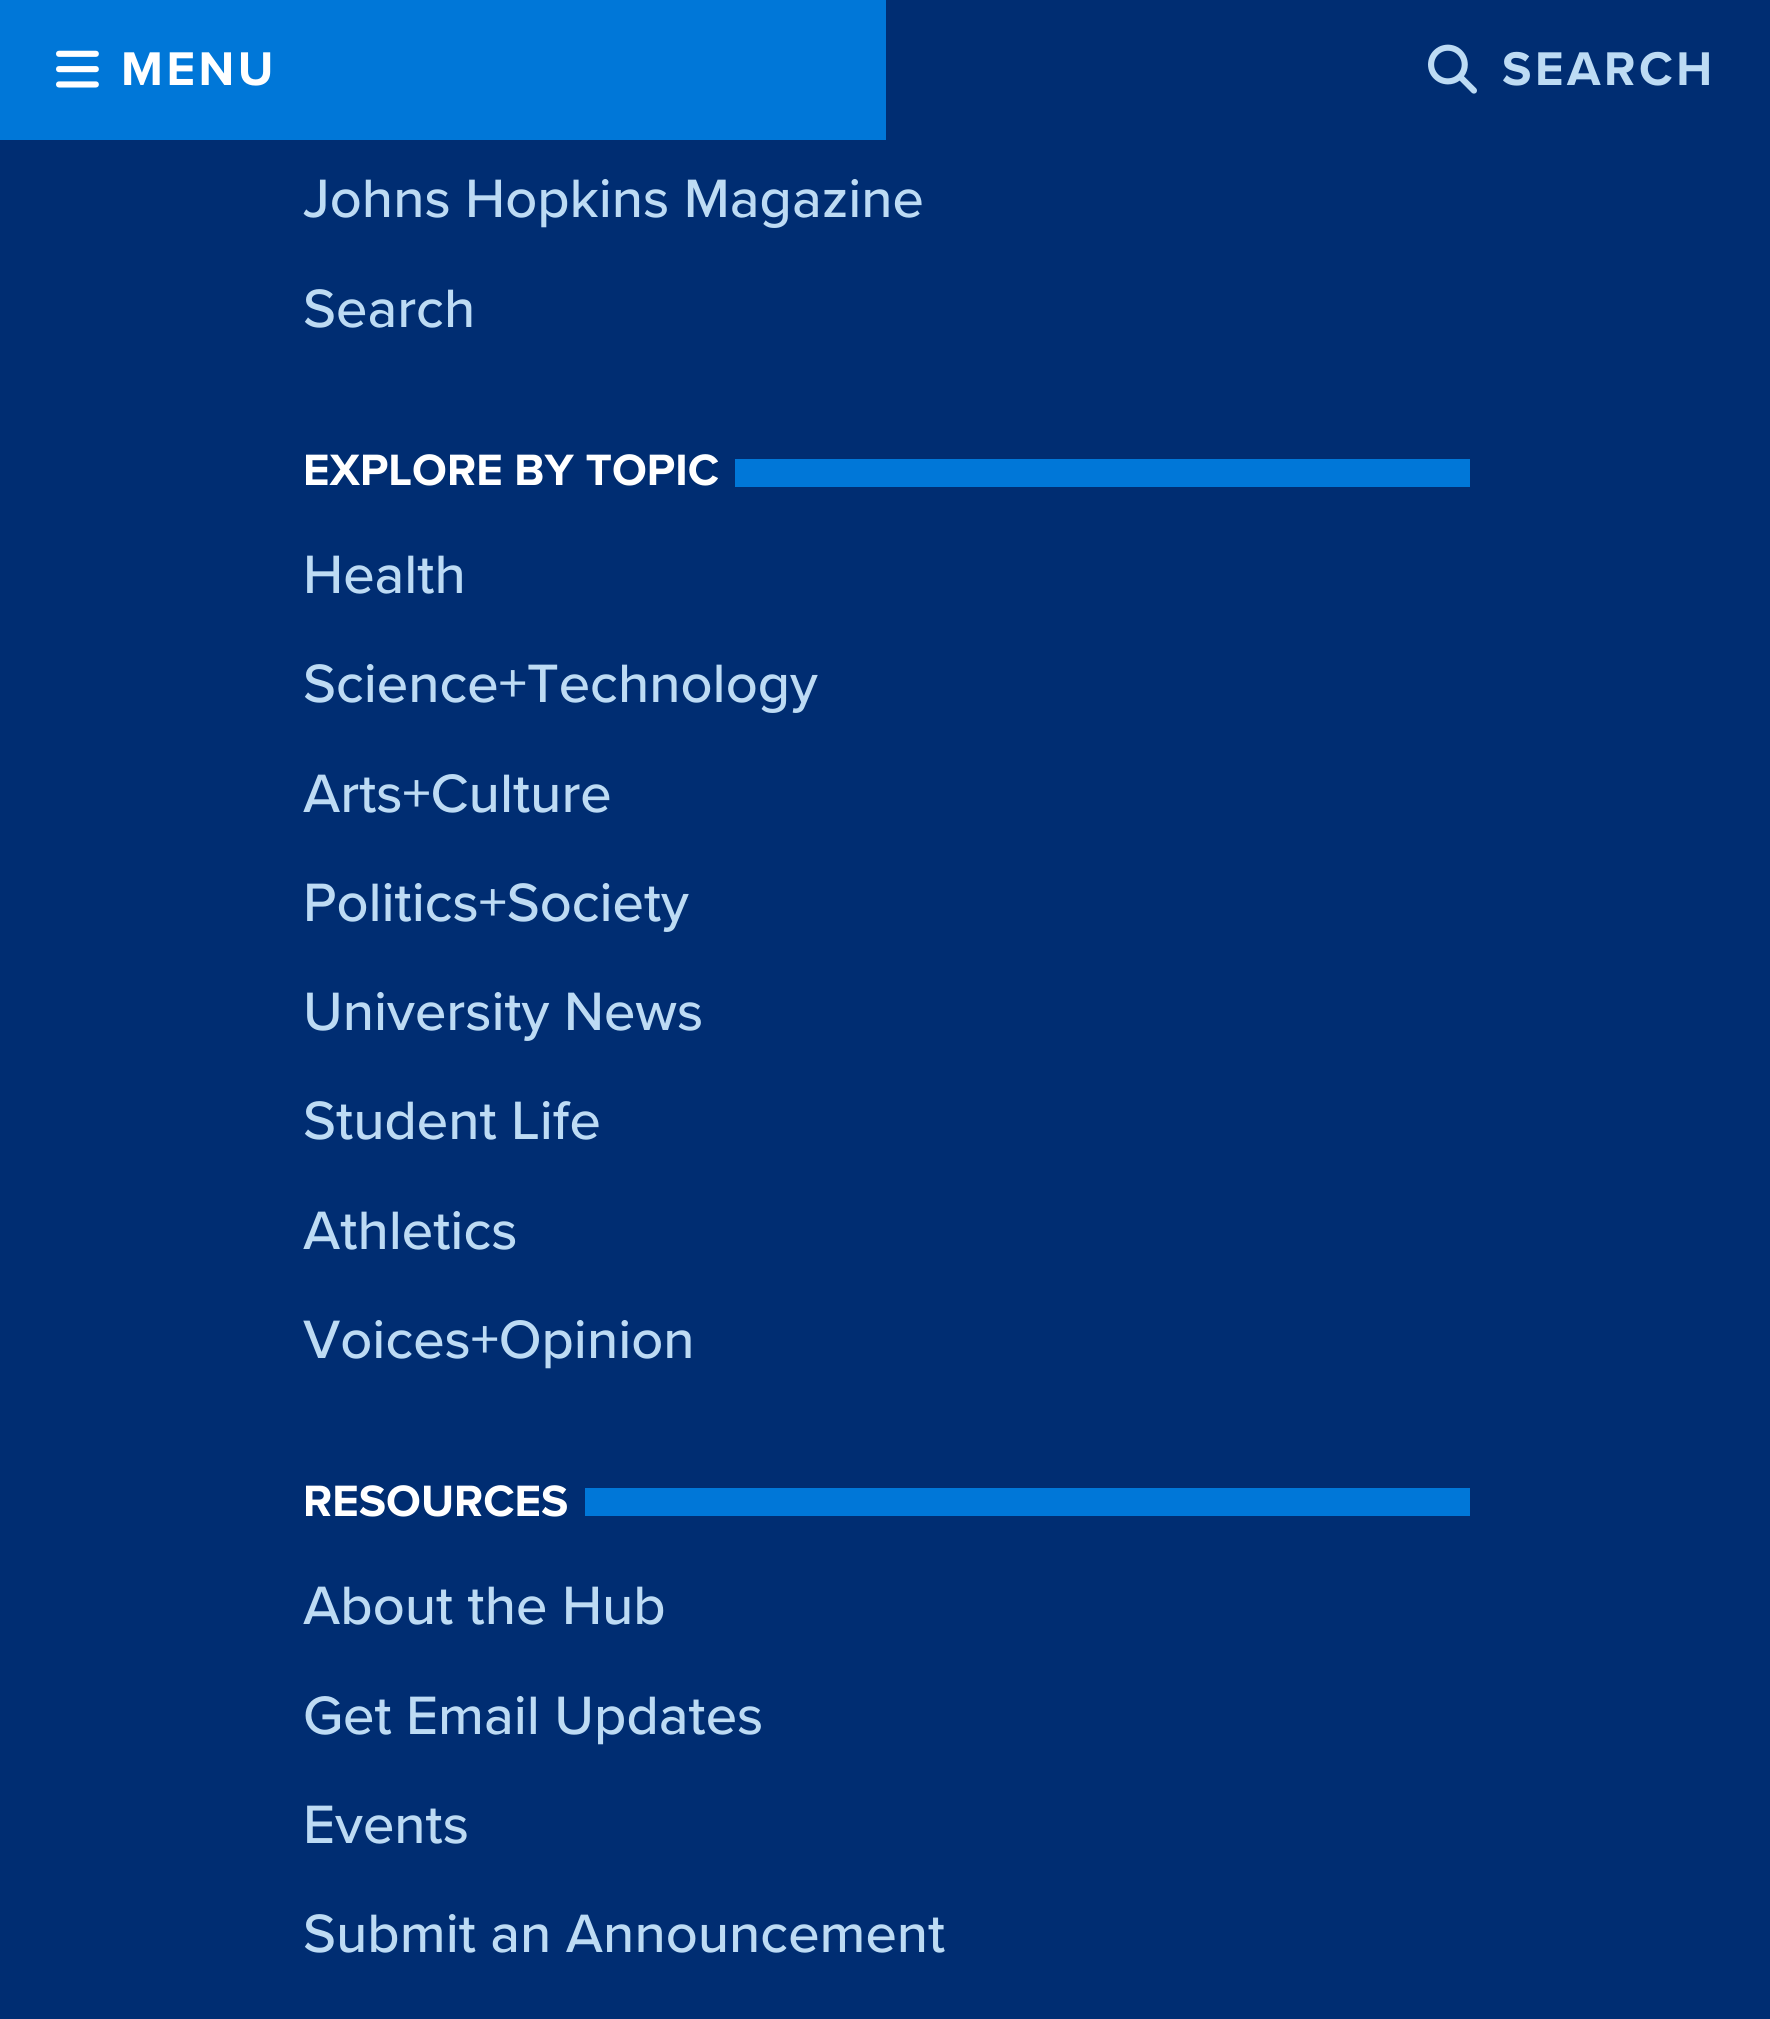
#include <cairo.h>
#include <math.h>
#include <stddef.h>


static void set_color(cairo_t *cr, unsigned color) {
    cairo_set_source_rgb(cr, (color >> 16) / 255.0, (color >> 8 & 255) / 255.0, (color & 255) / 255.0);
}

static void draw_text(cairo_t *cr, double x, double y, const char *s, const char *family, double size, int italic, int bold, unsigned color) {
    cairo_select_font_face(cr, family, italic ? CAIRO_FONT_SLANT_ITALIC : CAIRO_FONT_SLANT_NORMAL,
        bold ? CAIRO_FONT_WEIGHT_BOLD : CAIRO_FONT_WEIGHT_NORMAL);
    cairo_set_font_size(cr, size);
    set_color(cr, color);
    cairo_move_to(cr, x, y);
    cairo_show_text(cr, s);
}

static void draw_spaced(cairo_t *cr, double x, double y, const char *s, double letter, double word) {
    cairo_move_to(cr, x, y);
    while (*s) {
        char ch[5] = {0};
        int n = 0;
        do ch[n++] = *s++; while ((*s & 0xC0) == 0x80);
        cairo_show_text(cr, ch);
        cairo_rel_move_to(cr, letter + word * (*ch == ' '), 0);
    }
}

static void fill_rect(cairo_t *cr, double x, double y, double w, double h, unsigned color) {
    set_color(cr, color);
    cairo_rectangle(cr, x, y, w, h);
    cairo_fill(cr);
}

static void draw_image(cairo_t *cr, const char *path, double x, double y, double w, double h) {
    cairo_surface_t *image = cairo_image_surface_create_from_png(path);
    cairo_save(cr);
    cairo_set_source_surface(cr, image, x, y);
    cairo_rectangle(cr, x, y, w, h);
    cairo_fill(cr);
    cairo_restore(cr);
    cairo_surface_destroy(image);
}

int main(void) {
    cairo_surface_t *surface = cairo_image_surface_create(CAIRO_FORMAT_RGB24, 1770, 2019);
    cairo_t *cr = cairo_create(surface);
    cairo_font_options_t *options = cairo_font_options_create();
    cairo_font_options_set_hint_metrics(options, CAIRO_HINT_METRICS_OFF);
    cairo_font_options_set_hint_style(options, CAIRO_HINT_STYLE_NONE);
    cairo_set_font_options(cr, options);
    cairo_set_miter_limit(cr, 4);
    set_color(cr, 0x002D72);
    cairo_paint(cr);
    fill_rect(cr, 0, 0, 886, 140, 0x0077D8);
    draw_image(cr, "assets/img1.png", 56, 50, 43, 38);
    cairo_select_font_face(cr, "Proxima Nova", CAIRO_FONT_SLANT_NORMAL, CAIRO_FONT_WEIGHT_BOLD);
    cairo_set_font_size(cr, 49);
    set_color(cr, 0xFFFFFF);
    draw_spaced(cr, 121, 85, "MENU", 3.5, 0);
    draw_image(cr, "assets/img2.png", 1428, 44, 49, 50);
    set_color(cr, 0xBDDBF4);
    draw_spaced(cr, 1502, 85, "SEARCH", 3.5, 0);
    draw_text(cr, 303, 217, "Johns Hopkins Magazine", "Proxima Nova Medium", 56, 0, 0, 0xBDDBF4);
    draw_text(cr, 303, 327, "Search", "Proxima Nova Medium", 56, 0, 0, 0xBDDBF4);
    draw_text(cr, 303, 485, "EXPLORE BY TOPIC", "Proxima Nova", 45.5, 0, 1, 0xFFFFFF);
    fill_rect(cr, 735, 459, 735, 28, 0x0077D8);
    draw_text(cr, 303, 593, "Health", "Proxima Nova Medium", 56, 0, 0, 0xBDDBF4);
    draw_text(cr, 303, 702, "Science+Technology", "Proxima Nova Medium", 56, 0, 0, 0xBDDBF4);
    draw_text(cr, 303, 812, "Arts+Culture", "Proxima Nova Medium", 56, 0, 0, 0xBDDBF4);
    draw_text(cr, 303, 921, "Politics+Society", "Proxima Nova Medium", 56, 0, 0, 0xBDDBF4);
    draw_text(cr, 303, 1030, "University News", "Proxima Nova Medium", 56, 0, 0, 0xBDDBF4);
    draw_text(cr, 303, 1139, "Student Life", "Proxima Nova Medium", 56, 0, 0, 0xBDDBF4);
    draw_text(cr, 303, 1249, "Athletics", "Proxima Nova Medium", 56, 0, 0, 0xBDDBF4);
    draw_text(cr, 303, 1358, "Voices+Opinion", "Proxima Nova Medium", 56, 0, 0, 0xBDDBF4);
    draw_text(cr, 303, 1516, "RESOURCES", "Proxima Nova", 45.5, 0, 1, 0xFFFFFF);
    fill_rect(cr, 585, 1488, 885, 28, 0x0077D8);
    draw_text(cr, 303, 1624, "About the Hub", "Proxima Nova Medium", 56, 0, 0, 0xBDDBF4);
    draw_text(cr, 303, 1734, "Get Email Updates", "Proxima Nova Medium", 56, 0, 0, 0xBDDBF4);
    draw_text(cr, 303, 1843, "Events", "Proxima Nova Medium", 56, 0, 0, 0xBDDBF4);
    draw_text(cr, 303, 1952, "Submit an Announcement", "Proxima Nova Medium", 56, 0, 0, 0xBDDBF4);
    cairo_surface_write_to_png(surface, "output.png");
    cairo_font_options_destroy(options);
    cairo_destroy(cr);
    cairo_surface_destroy(surface);
    return 0;
}
